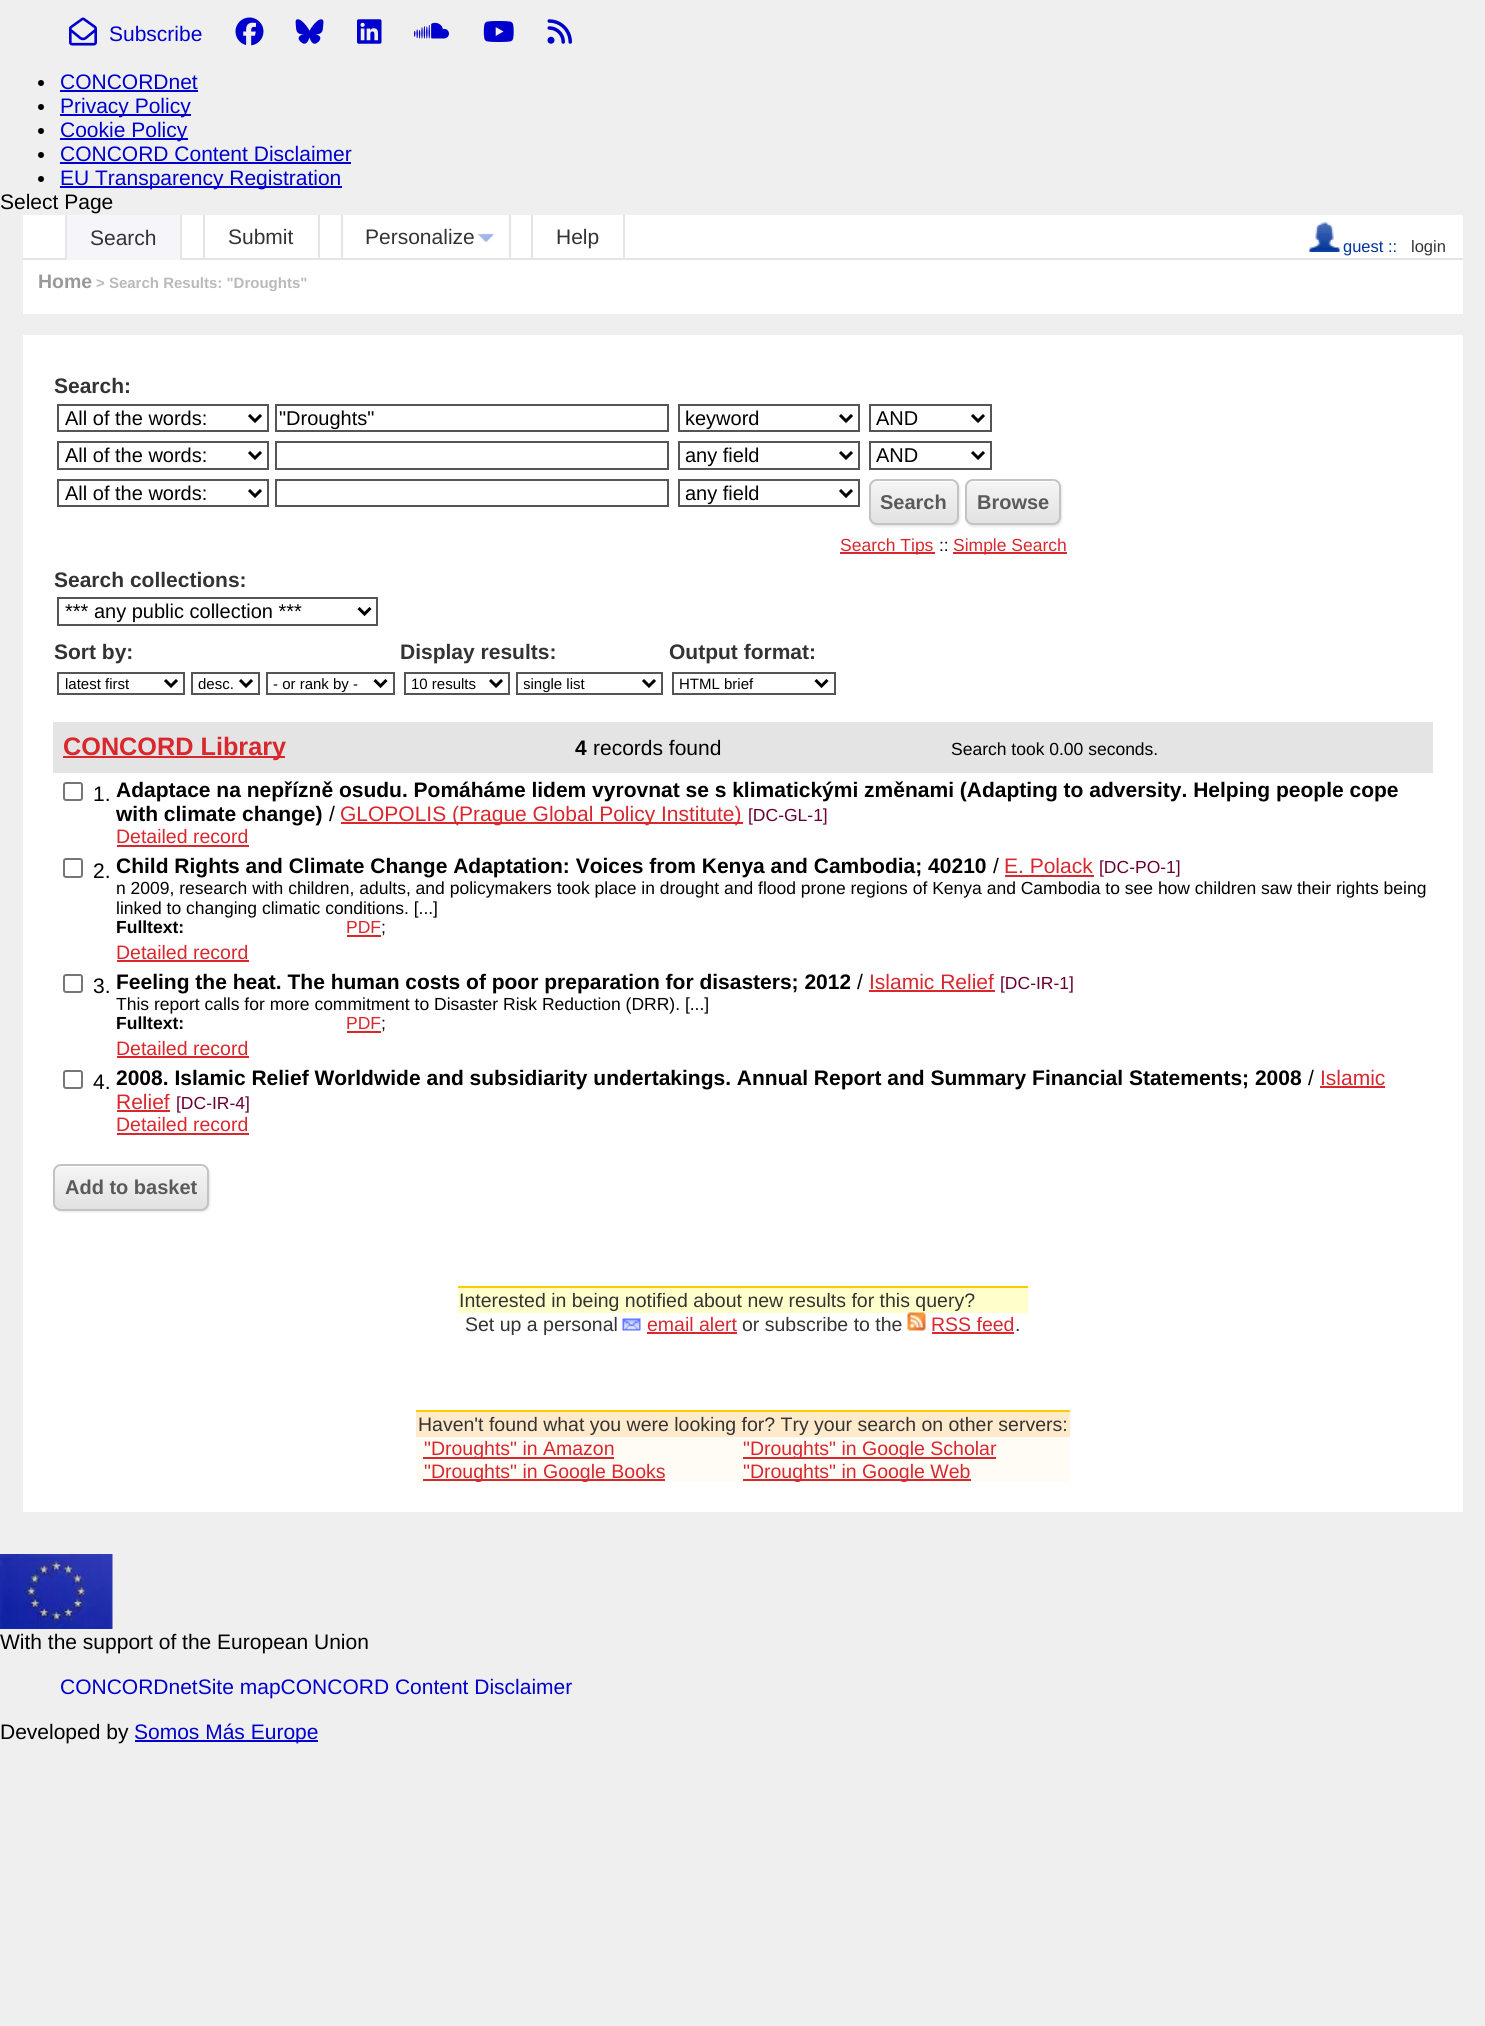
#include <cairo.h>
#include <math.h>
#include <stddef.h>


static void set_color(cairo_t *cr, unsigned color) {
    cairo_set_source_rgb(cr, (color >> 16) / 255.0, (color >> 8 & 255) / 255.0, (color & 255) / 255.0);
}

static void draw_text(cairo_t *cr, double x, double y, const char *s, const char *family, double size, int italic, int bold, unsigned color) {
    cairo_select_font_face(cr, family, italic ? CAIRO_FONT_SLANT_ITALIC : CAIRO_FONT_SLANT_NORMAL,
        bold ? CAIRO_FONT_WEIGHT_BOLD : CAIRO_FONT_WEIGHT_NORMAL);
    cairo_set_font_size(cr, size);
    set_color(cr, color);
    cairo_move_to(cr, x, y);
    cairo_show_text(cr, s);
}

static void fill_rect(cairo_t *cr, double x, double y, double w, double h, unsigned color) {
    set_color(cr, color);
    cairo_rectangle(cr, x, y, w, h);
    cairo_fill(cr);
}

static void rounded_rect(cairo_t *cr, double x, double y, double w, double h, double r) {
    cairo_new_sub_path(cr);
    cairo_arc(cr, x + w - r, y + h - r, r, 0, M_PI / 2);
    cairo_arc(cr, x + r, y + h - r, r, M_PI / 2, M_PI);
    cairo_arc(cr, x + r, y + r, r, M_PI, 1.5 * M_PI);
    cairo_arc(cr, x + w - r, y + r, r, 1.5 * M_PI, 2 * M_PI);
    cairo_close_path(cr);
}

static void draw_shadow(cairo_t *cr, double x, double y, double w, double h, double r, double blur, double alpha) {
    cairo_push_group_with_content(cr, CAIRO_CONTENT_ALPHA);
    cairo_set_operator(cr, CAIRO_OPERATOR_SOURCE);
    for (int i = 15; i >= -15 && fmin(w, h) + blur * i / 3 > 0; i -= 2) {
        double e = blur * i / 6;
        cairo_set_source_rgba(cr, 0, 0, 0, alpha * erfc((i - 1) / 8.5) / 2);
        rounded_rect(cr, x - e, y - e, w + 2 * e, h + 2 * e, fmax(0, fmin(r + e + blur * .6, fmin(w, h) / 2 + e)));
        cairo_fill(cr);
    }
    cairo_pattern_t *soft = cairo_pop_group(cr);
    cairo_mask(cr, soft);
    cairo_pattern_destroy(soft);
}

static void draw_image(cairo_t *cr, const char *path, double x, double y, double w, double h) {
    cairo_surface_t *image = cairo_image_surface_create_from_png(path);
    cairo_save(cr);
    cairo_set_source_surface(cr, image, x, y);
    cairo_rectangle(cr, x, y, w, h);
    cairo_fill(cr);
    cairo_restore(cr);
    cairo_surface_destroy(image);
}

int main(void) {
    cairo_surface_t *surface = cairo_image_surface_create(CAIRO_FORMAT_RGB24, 1485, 2026);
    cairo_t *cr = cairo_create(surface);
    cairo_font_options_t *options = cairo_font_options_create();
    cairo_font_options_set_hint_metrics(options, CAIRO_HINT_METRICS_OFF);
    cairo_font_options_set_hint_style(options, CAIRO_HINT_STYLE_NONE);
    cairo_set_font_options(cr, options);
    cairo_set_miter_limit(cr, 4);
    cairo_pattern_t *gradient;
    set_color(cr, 0xEFEFEF);
    cairo_paint(cr);
    draw_image(cr, "assets/img1.png", 69, 17, 28, 29);
    draw_text(cr, 109, 41, "Subscribe", "Liberation Sans", 21, 0, 0, 0x0000CC);
    draw_image(cr, "assets/img2.png", 235, 17, 29, 29);
    draw_image(cr, "assets/img3.png", 295, 19, 29, 25);
    draw_image(cr, "assets/img4.png", 357, 19, 25, 25);
    draw_image(cr, "assets/img5.png", 414, 22, 35, 17);
    draw_image(cr, "assets/img6.png", 483, 21, 31, 21);
    draw_image(cr, "assets/img7.png", 547, 19, 25, 25);
    set_color(cr, 0x000000);
    cairo_arc(cr, 41, 83, 3, 0, 2 * M_PI);
    cairo_fill(cr);
    draw_text(cr, 60, 89, "CONCORDnet", "Liberation Sans", 21, 0, 0, 0x0000CC);
    fill_rect(cr, 60, 90, 138, 2, 0x0000CC);
    set_color(cr, 0x000000);
    cairo_new_path(cr);
    cairo_arc(cr, 41, 107, 3, 0, 2 * M_PI);
    cairo_fill(cr);
    fill_rect(cr, 60, 114, 131, 2, 0x0000CC);
    draw_text(cr, 60, 113, "Privacy Policy", "Liberation Sans", 21, 0, 0, 0x0000CC);
    set_color(cr, 0x000000);
    cairo_new_path(cr);
    cairo_arc(cr, 41, 131, 3, 0, 2 * M_PI);
    cairo_fill(cr);
    fill_rect(cr, 60, 138, 128, 2, 0x0000CC);
    draw_text(cr, 60, 137, "Cookie Policy", "Liberation Sans", 21, 0, 0, 0x0000CC);
    set_color(cr, 0x000000);
    cairo_new_path(cr);
    cairo_arc(cr, 41, 155, 3, 0, 2 * M_PI);
    cairo_fill(cr);
    draw_text(cr, 60, 161, "CONCORD Content Disclaimer", "Liberation Sans", 21, 0, 0, 0x0000CC);
    fill_rect(cr, 60, 162, 291, 2, 0x0000CC);
    set_color(cr, 0x000000);
    cairo_new_path(cr);
    cairo_arc(cr, 41, 179, 3, 0, 2 * M_PI);
    cairo_fill(cr);
    fill_rect(cr, 60, 186, 282, 2, 0x0000CC);
    draw_text(cr, 60, 185, "EU Transparency Registration", "Liberation Sans", 21, 0, 0, 0x0000CC);
    draw_text(cr, 0, 209, "Select Page", "Liberation Sans", 21, 0, 0, 0x000000);
    fill_rect(cr, 23, 215, 1440, 99, 0xFFFFFF);
    fill_rect(cr, 67, 215, 113, 45, 0xF6F6FA);
    fill_rect(cr, 180, 215, 2, 45, 0xE5E5E5);
    fill_rect(cr, 65, 215, 2, 45, 0xE5E5E5);
    draw_text(cr, 90, 245, "Search", "Liberation Sans", 21, 0, 0, 0x333333);
    fill_rect(cr, 318, 215, 2, 45, 0xE5E5E5);
    fill_rect(cr, 203, 258, 138, 2, 0xE5E5E5);
    fill_rect(cr, 203, 215, 2, 45, 0xE5E5E5);
    draw_text(cr, 228, 244, "Submit", "Liberation Sans", 21, 0, 0, 0x333333);
    fill_rect(cr, 509, 215, 2, 45, 0xE5E5E5);
    fill_rect(cr, 341, 258, 190, 2, 0xE5E5E5);
    fill_rect(cr, 341, 215, 2, 45, 0xE5E5E5);
    draw_text(cr, 365, 244, "Personalize", "Liberation Sans", 21, 0, 0, 0x333333);
    draw_image(cr, "assets/img8.png", 478, 233, 16, 9);
    fill_rect(cr, 623, 215, 2, 45, 0xE5E5E5);
    fill_rect(cr, 531, 258, 932, 2, 0xE5E5E5);
    fill_rect(cr, 531, 215, 2, 45, 0xE5E5E5);
    draw_text(cr, 556, 244, "Help", "Liberation Sans", 21, 0, 0, 0x333333);
    draw_image(cr, "assets/img9.png", 1309, 222, 31, 30);
    draw_text(cr, 1343, 252, "guest ::", "Liberation Sans", 16.5, 0, 0, 0x003399);
    draw_text(cr, 1411, 252, "login", "Liberation Sans", 16.5, 0, 0, 0x333333);
    fill_rect(cr, 23, 258, 42, 2, 0xE5E5E5);
    fill_rect(cr, 182, 258, 21, 2, 0xE5E5E5);
    draw_text(cr, 38, 288, "Home", "Liberation Sans", 19.5, 0, 1, 0x999999);
    draw_text(cr, 96, 288, "> Search Results: \"Droughts\"", "Liberation Sans", 15, 0, 1, 0xBABABA);
    fill_rect(cr, 23, 335, 1440, 1177, 0xFFFFFF);
    draw_text(cr, 54, 393, "Search:", "Liberation Sans", 21, 0, 1, 0x333333);
    cairo_rectangle(cr, 58, 405, 210, 26);
    set_color(cr, 0x555555);
    cairo_stroke(cr);
    cairo_new_path(cr);
    cairo_move_to(cr, 249, 415);
    cairo_line_to(cr, 255, 421);
    cairo_line_to(cr, 261, 415);
    set_color(cr, 0x000000);
    cairo_set_line_width(cr, 3);
    cairo_stroke(cr);
    draw_text(cr, 65, 425, "All of the words:", "Liberation Sans", 20, 0, 0, 0x000000);
    cairo_rectangle(cr, 276, 405, 392, 26);
    set_color(cr, 0x555555);
    cairo_set_line_width(cr, 2);
    cairo_stroke(cr);
    draw_text(cr, 279, 425, "\"Droughts\"", "Liberation Sans", 20, 0, 0, 0x000000);
    cairo_rectangle(cr, 679, 405, 180, 26);
    set_color(cr, 0x555555);
    cairo_stroke(cr);
    cairo_new_path(cr);
    cairo_move_to(cr, 840, 415);
    cairo_line_to(cr, 846, 421);
    cairo_line_to(cr, 852, 415);
    set_color(cr, 0x000000);
    cairo_set_line_width(cr, 3);
    cairo_stroke(cr);
    draw_text(cr, 685, 425, "keyword", "Liberation Sans", 20, 0, 0, 0x000000);
    cairo_rectangle(cr, 870, 405, 121, 26);
    set_color(cr, 0x555555);
    cairo_set_line_width(cr, 2);
    cairo_stroke(cr);
    cairo_new_path(cr);
    cairo_move_to(cr, 972, 415);
    cairo_line_to(cr, 978, 421);
    cairo_line_to(cr, 984, 415);
    set_color(cr, 0x000000);
    cairo_set_line_width(cr, 3);
    cairo_stroke(cr);
    draw_text(cr, 876, 425, "AND", "Liberation Sans", 20, 0, 0, 0x000000);
    cairo_rectangle(cr, 58, 442, 210, 27);
    set_color(cr, 0x555555);
    cairo_set_line_width(cr, 2);
    cairo_stroke(cr);
    cairo_new_path(cr);
    cairo_move_to(cr, 249, 452);
    cairo_line_to(cr, 255, 458);
    cairo_line_to(cr, 261, 452);
    set_color(cr, 0x000000);
    cairo_set_line_width(cr, 3);
    cairo_stroke(cr);
    draw_text(cr, 65, 462, "All of the words:", "Liberation Sans", 20, 0, 0, 0x000000);
    cairo_rectangle(cr, 276, 442, 392, 27);
    set_color(cr, 0x555555);
    cairo_set_line_width(cr, 2);
    cairo_stroke(cr);
    cairo_rectangle(cr, 679, 442, 180, 27);
    cairo_stroke(cr);
    cairo_new_path(cr);
    cairo_move_to(cr, 840, 452);
    cairo_line_to(cr, 846, 458);
    cairo_line_to(cr, 852, 452);
    set_color(cr, 0x000000);
    cairo_set_line_width(cr, 3);
    cairo_stroke(cr);
    draw_text(cr, 685, 462, "any field", "Liberation Sans", 20, 0, 0, 0x000000);
    cairo_rectangle(cr, 870, 442, 121, 27);
    set_color(cr, 0x555555);
    cairo_set_line_width(cr, 2);
    cairo_stroke(cr);
    cairo_new_path(cr);
    cairo_move_to(cr, 972, 452);
    cairo_line_to(cr, 978, 458);
    cairo_line_to(cr, 984, 452);
    set_color(cr, 0x000000);
    cairo_set_line_width(cr, 3);
    cairo_stroke(cr);
    draw_text(cr, 876, 462, "AND", "Liberation Sans", 20, 0, 0, 0x000000);
    cairo_rectangle(cr, 58, 480, 210, 26);
    set_color(cr, 0x555555);
    cairo_set_line_width(cr, 2);
    cairo_stroke(cr);
    cairo_new_path(cr);
    cairo_move_to(cr, 249, 490);
    cairo_line_to(cr, 255, 496);
    cairo_line_to(cr, 261, 490);
    set_color(cr, 0x000000);
    cairo_set_line_width(cr, 3);
    cairo_stroke(cr);
    draw_text(cr, 65, 500, "All of the words:", "Liberation Sans", 20, 0, 0, 0x000000);
    cairo_rectangle(cr, 276, 480, 392, 26);
    set_color(cr, 0x555555);
    cairo_set_line_width(cr, 2);
    cairo_stroke(cr);
    cairo_rectangle(cr, 679, 480, 180, 26);
    cairo_stroke(cr);
    cairo_new_path(cr);
    cairo_move_to(cr, 840, 490);
    cairo_line_to(cr, 846, 496);
    cairo_line_to(cr, 852, 490);
    set_color(cr, 0x000000);
    cairo_set_line_width(cr, 3);
    cairo_stroke(cr);
    draw_text(cr, 685, 500, "any field", "Liberation Sans", 20, 0, 0, 0x000000);
    set_color(cr, 0x000000);
    draw_shadow(cr, 870, 480, 90, 47, 8, 1, 0.1);
    cairo_save(cr);
    rounded_rect(cr, 869, 479, 90, 46, 8);
    cairo_clip(cr);
    gradient = cairo_pattern_create_linear(914, 480, 914, 524);
    cairo_pattern_add_color_stop_rgba(gradient, 0, 0.961, 0.961, 0.961, 1);
    cairo_pattern_add_color_stop_rgba(gradient, 1, 0.886, 0.886, 0.886, 1);
    cairo_set_source(cr, gradient);
    cairo_pattern_destroy(gradient);
    cairo_rectangle(cr, 869, 480, 90, 44);
    cairo_fill(cr);
    cairo_restore(cr);
    set_color(cr, 0xFEFEFE);
    cairo_new_path(cr);
    cairo_move_to(cr, 876, 482);
    cairo_line_to(cr, 951, 482);
    cairo_curve_to(cr, 954, 482, 957, 484, 957, 488);
    cairo_curve_to(cr, 957, 477, 947, 480, 938, 480);
    cairo_line_to(cr, 888, 480);
    cairo_curve_to(cr, 880, 480, 870, 477, 870, 488);
    cairo_curve_to(cr, 870, 484, 873, 482, 876, 482);
    cairo_close_path(cr);
    cairo_fill(cr);
    rounded_rect(cr, 870, 480, 88, 44, 7);
    set_color(cr, 0xC3C3C3);
    cairo_set_line_width(cr, 2);
    cairo_stroke(cr);
    draw_text(cr, 880, 509, "Search", "Liberation Sans", 20, 0, 1, 0x595A5A);
    set_color(cr, 0x000000);
    draw_shadow(cr, 966, 480, 96, 47, 8, 1, 0.1);
    cairo_save(cr);
    rounded_rect(cr, 965, 479, 96, 46, 8);
    cairo_clip(cr);
    gradient = cairo_pattern_create_linear(1013, 480, 1013, 524);
    cairo_pattern_add_color_stop_rgba(gradient, 0, 0.961, 0.961, 0.961, 1);
    cairo_pattern_add_color_stop_rgba(gradient, 1, 0.886, 0.886, 0.886, 1);
    cairo_set_source(cr, gradient);
    cairo_pattern_destroy(gradient);
    cairo_rectangle(cr, 965, 480, 96, 44);
    cairo_fill(cr);
    cairo_restore(cr);
    set_color(cr, 0xFEFEFE);
    cairo_new_path(cr);
    cairo_move_to(cr, 972, 482);
    cairo_line_to(cr, 1053, 482);
    cairo_curve_to(cr, 1056, 482, 1059, 484, 1059, 488);
    cairo_curve_to(cr, 1059, 477, 1049, 480, 1040, 480);
    cairo_line_to(cr, 986, 480);
    cairo_curve_to(cr, 976, 480, 966, 477, 966, 488);
    cairo_curve_to(cr, 966, 484, 969, 482, 972, 482);
    cairo_close_path(cr);
    cairo_fill(cr);
    rounded_rect(cr, 966, 480, 94, 44, 7);
    set_color(cr, 0xC3C3C3);
    cairo_stroke(cr);
    draw_text(cr, 977, 509, "Browse", "Liberation Sans", 20, 0, 1, 0x595A5A);
    fill_rect(cr, 840, 552, 95, 2, 0xD9272E);
    draw_text(cr, 840, 551, "Search Tips", "Liberation Sans", 17.5, 0, 0, 0xD9272E);
    draw_text(cr, 939, 551, "::", "Liberation Sans", 17.5, 0, 0, 0x000000);
    fill_rect(cr, 953, 552, 114, 2, 0xD9272E);
    draw_text(cr, 953, 551, "Simple Search", "Liberation Sans", 17.5, 0, 0, 0xD9272E);
    draw_text(cr, 54, 587, "Search collections:", "Liberation Sans", 21, 0, 1, 0x333333);
    cairo_rectangle(cr, 58, 598, 319, 27);
    set_color(cr, 0x555555);
    cairo_stroke(cr);
    cairo_new_path(cr);
    cairo_move_to(cr, 358.5, 608);
    cairo_line_to(cr, 364.5, 614);
    cairo_line_to(cr, 370.5, 608);
    set_color(cr, 0x000000);
    cairo_set_line_width(cr, 3);
    cairo_stroke(cr);
    draw_text(cr, 65, 618, "*** any public collection ***", "Liberation Sans", 20, 0, 0, 0x000000);
    draw_text(cr, 54, 659, "Sort by:", "Liberation Sans", 21, 0, 1, 0x333333);
    draw_text(cr, 400, 659, "Display results:", "Liberation Sans", 21, 0, 1, 0x333333);
    draw_text(cr, 669, 659, "Output format:", "Liberation Sans", 21, 0, 1, 0x333333);
    cairo_rectangle(cr, 58, 673, 126, 21);
    set_color(cr, 0x555555);
    cairo_set_line_width(cr, 2);
    cairo_stroke(cr);
    cairo_new_path(cr);
    cairo_move_to(cr, 165, 680);
    cairo_line_to(cr, 171, 686);
    cairo_line_to(cr, 177, 680);
    set_color(cr, 0x000000);
    cairo_set_line_width(cr, 3);
    cairo_stroke(cr);
    draw_text(cr, 65, 689, "latest first", "Liberation Sans", 15, 0, 0, 0x000000);
    cairo_rectangle(cr, 192, 673, 67, 21);
    set_color(cr, 0x555555);
    cairo_set_line_width(cr, 2);
    cairo_stroke(cr);
    cairo_new_path(cr);
    cairo_move_to(cr, 240, 680);
    cairo_line_to(cr, 246, 686);
    cairo_line_to(cr, 252, 680);
    set_color(cr, 0x000000);
    cairo_set_line_width(cr, 3);
    cairo_stroke(cr);
    draw_text(cr, 198, 689, "desc.", "Liberation Sans", 15, 0, 0, 0x000000);
    cairo_rectangle(cr, 267, 673, 127, 21);
    set_color(cr, 0x555555);
    cairo_set_line_width(cr, 2);
    cairo_stroke(cr);
    cairo_new_path(cr);
    cairo_move_to(cr, 374.5, 680);
    cairo_line_to(cr, 380.5, 686);
    cairo_line_to(cr, 386.5, 680);
    set_color(cr, 0x000000);
    cairo_set_line_width(cr, 3);
    cairo_stroke(cr);
    draw_text(cr, 273, 689, "- or rank by -", "Liberation Sans", 15, 0, 0, 0x000000);
    cairo_rectangle(cr, 405, 673, 104, 21);
    set_color(cr, 0x555555);
    cairo_set_line_width(cr, 2);
    cairo_stroke(cr);
    cairo_new_path(cr);
    cairo_move_to(cr, 490, 680);
    cairo_line_to(cr, 496, 686);
    cairo_line_to(cr, 502, 680);
    set_color(cr, 0x000000);
    cairo_set_line_width(cr, 3);
    cairo_stroke(cr);
    draw_text(cr, 411, 689, "10 results", "Liberation Sans", 15, 0, 0, 0x000000);
    cairo_rectangle(cr, 517, 673, 145, 21);
    set_color(cr, 0x555555);
    cairo_set_line_width(cr, 2);
    cairo_stroke(cr);
    cairo_new_path(cr);
    cairo_move_to(cr, 643, 680);
    cairo_line_to(cr, 649, 686);
    cairo_line_to(cr, 655, 680);
    set_color(cr, 0x000000);
    cairo_set_line_width(cr, 3);
    cairo_stroke(cr);
    cairo_save(cr);
    cairo_rectangle(cr, 524, 674, 114, 19);
    cairo_clip(cr);
    draw_text(cr, 523, 689, "single list", "Liberation Sans", 15, 0, 0, 0x000000);
    cairo_restore(cr);
    cairo_rectangle(cr, 673, 673, 162, 21);
    set_color(cr, 0x555555);
    cairo_set_line_width(cr, 2);
    cairo_stroke(cr);
    cairo_new_path(cr);
    cairo_move_to(cr, 815.5, 680);
    cairo_line_to(cr, 821.5, 686);
    cairo_line_to(cr, 827.5, 680);
    set_color(cr, 0x000000);
    cairo_set_line_width(cr, 3);
    cairo_stroke(cr);
    draw_text(cr, 679, 689, "HTML brief", "Liberation Sans", 15, 0, 0, 0x000000);
    fill_rect(cr, 53, 722, 1380, 51, 0xE4E4E4);
    fill_rect(cr, 63, 756, 222, 2, 0xD9272E);
    draw_text(cr, 63, 755, "CONCORD Library", "Liberation Sans", 25.25, 0, 1, 0xD9272E);
    draw_text(cr, 575, 755, "4", "Liberation Sans", 21, 0, 1, 0x000000);
    draw_text(cr, 593, 755, "records found", "Liberation Sans", 21, 0, 0, 0x000000);
    draw_text(cr, 951, 755, "Search took 0.00 seconds.", "Liberation Sans", 17.5, 0, 0, 0x000000);
    rounded_rect(cr, 64, 783, 18, 17, 2);
    set_color(cr, 0x767676);
    cairo_set_line_width(cr, 2);
    cairo_stroke(cr);
    draw_text(cr, 93, 801, "1.", "Liberation Sans", 21, 0, 0, 0x000000);
    draw_text(cr, 116, 797, "Adaptace na nepřízně osudu. Pomáháme lidem vyrovnat se s klimatickými změnami (Adapting to adversity. Helping people cope", "Liberation Sans", 21, 0, 1, 0x000000);
    draw_text(cr, 116, 821, "with climate change)", "Liberation Sans", 21, 0, 1, 0x000000);
    draw_text(cr, 329, 821, "/", "Liberation Sans", 21, 0, 0, 0x000000);
    fill_rect(cr, 341, 822, 402, 2, 0xD9272E);
    draw_text(cr, 340, 821, "GLOPOLIS (Prague Global Policy Institute)", "Liberation Sans", 21, 0, 0, 0xD9272E);
    draw_text(cr, 748, 821, "[DC-GL-1]", "Liberation Sans", 17.5, 0, 0, 0x660033);
    draw_text(cr, 116, 843, "Detailed record", "Liberation Sans", 19.5, 0, 0, 0xD9272E);
    fill_rect(cr, 117, 845, 132, 2, 0xD9272E);
    rounded_rect(cr, 64, 859, 18, 18, 2);
    set_color(cr, 0x767676);
    cairo_stroke(cr);
    draw_text(cr, 93, 878, "2.", "Liberation Sans", 21, 0, 0, 0x000000);
    draw_text(cr, 116, 873, "Child Rights and Climate Change Adaptation: Voices from Kenya and Cambodia; 40210", "Liberation Sans", 21, 0, 1, 0x000000);
    draw_text(cr, 993, 873, "/", "Liberation Sans", 21, 0, 0, 0x000000);
    draw_text(cr, 1004, 873, "E. Polack", "Liberation Sans", 21, 0, 0, 0xD9272E);
    fill_rect(cr, 1005, 875, 89, 2, 0xD9272E);
    draw_text(cr, 1099, 873, "[DC-PO-1]", "Liberation Sans", 17.5, 0, 0, 0x660033);
    draw_text(cr, 116, 894, "n 2009, research with children, adults, and policymakers took place in drought and flood prone regions of Kenya and Cambodia to see how children saw their rights being", "Liberation Sans", 17.5, 0, 0, 0x000000);
    draw_text(cr, 116, 914, "linked to changing climatic conditions. [...]", "Liberation Sans", 17.5, 0, 0, 0x000000);
    draw_text(cr, 116, 933, "Fulltext:", "Liberation Sans", 17.5, 0, 1, 0x000000);
    draw_text(cr, 346, 933, "PDF", "Liberation Sans", 17.5, 0, 0, 0xD9272E);
    draw_text(cr, 381, 933, ";", "Liberation Sans", 17.5, 0, 0, 0x000000);
    fill_rect(cr, 347, 935, 34, 2, 0xD9272E);
    draw_text(cr, 116, 959, "Detailed record", "Liberation Sans", 19.5, 0, 0, 0xD9272E);
    fill_rect(cr, 117, 960, 132, 2, 0xD9272E);
    rounded_rect(cr, 64, 975, 18, 17, 2);
    set_color(cr, 0x767676);
    cairo_stroke(cr);
    draw_text(cr, 93, 993, "3.", "Liberation Sans", 21, 0, 0, 0x000000);
    draw_text(cr, 116, 989, "Feeling the heat. The human costs of poor preparation for disasters; 2012", "Liberation Sans", 21, 0, 1, 0x000000);
    draw_text(cr, 857, 989, "/", "Liberation Sans", 21, 0, 0, 0x000000);
    draw_text(cr, 869, 989, "Islamic Relief", "Liberation Sans", 21, 0, 0, 0xD9272E);
    fill_rect(cr, 869, 990, 126, 2, 0xD9272E);
    draw_text(cr, 1000, 989, "[DC-IR-1]", "Liberation Sans", 17.5, 0, 0, 0x660033);
    draw_text(cr, 116, 1010, "This report calls for more commitment to Disaster Risk Reduction (DRR). [...]", "Liberation Sans", 17.5, 0, 0, 0x000000);
    draw_text(cr, 116, 1029, "Fulltext:", "Liberation Sans", 17.5, 0, 1, 0x000000);
    draw_text(cr, 346, 1029, "PDF", "Liberation Sans", 17.5, 0, 0, 0xD9272E);
    draw_text(cr, 381, 1029, ";", "Liberation Sans", 17.5, 0, 0, 0x000000);
    fill_rect(cr, 347, 1031, 34, 2, 0xD9272E);
    draw_text(cr, 116, 1055, "Detailed record", "Liberation Sans", 19.5, 0, 0, 0xD9272E);
    fill_rect(cr, 117, 1056, 132, 2, 0xD9272E);
    rounded_rect(cr, 64, 1071, 18, 17, 2);
    set_color(cr, 0x767676);
    cairo_stroke(cr);
    draw_text(cr, 93, 1089, "4.", "Liberation Sans", 21, 0, 0, 0x000000);
    draw_text(cr, 116, 1085, "2008. Islamic Relief Worldwide and subsidiarity undertakings. Annual Report and Summary Financial Statements; 2008", "Liberation Sans", 21, 0, 1, 0x000000);
    draw_text(cr, 1308, 1085, "/", "Liberation Sans", 21, 0, 0, 0x000000);
    draw_text(cr, 1320, 1085, "Islamic", "Liberation Sans", 21, 0, 0, 0xD9272E);
    fill_rect(cr, 1320, 1086, 65, 2, 0xD9272E);
    draw_text(cr, 116, 1109, "Relief", "Liberation Sans", 21, 0, 0, 0xD9272E);
    fill_rect(cr, 117, 1110, 53, 2, 0xD9272E);
    draw_text(cr, 176, 1109, "[DC-IR-4]", "Liberation Sans", 17.5, 0, 0, 0x660033);
    draw_text(cr, 116, 1131, "Detailed record", "Liberation Sans", 19.5, 0, 0, 0xD9272E);
    fill_rect(cr, 117, 1133, 132, 2, 0xD9272E);
    set_color(cr, 0x000000);
    draw_shadow(cr, 54, 1166, 156, 46, 8, 1, 0.1);
    cairo_save(cr);
    rounded_rect(cr, 53, 1164, 156, 47, 8);
    cairo_clip(cr);
    gradient = cairo_pattern_create_linear(131, 1166, 131, 1209);
    cairo_pattern_add_color_stop_rgba(gradient, 0, 0.961, 0.961, 0.961, 1);
    cairo_pattern_add_color_stop_rgba(gradient, 1, 0.886, 0.886, 0.886, 1);
    cairo_set_source(cr, gradient);
    cairo_pattern_destroy(gradient);
    cairo_rectangle(cr, 53, 1166, 156, 43);
    cairo_fill(cr);
    cairo_restore(cr);
    set_color(cr, 0xFEFEFE);
    cairo_new_path(cr);
    cairo_move_to(cr, 60, 1167);
    cairo_line_to(cr, 201, 1167);
    cairo_curve_to(cr, 204, 1167, 207, 1170, 207, 1173);
    cairo_line_to(cr, 207, 1172);
    cairo_curve_to(cr, 207, 1169, 204, 1166, 201, 1166);
    cairo_line_to(cr, 60, 1166);
    cairo_curve_to(cr, 57, 1166, 54, 1169, 54, 1172);
    cairo_line_to(cr, 54, 1173);
    cairo_curve_to(cr, 54, 1170, 57, 1167, 60, 1167);
    cairo_close_path(cr);
    cairo_fill(cr);
    rounded_rect(cr, 54, 1165, 154, 45, 7);
    set_color(cr, 0xC3C3C3);
    cairo_stroke(cr);
    draw_text(cr, 65, 1194, "Add to basket", "Liberation Sans", 20, 0, 1, 0x595A5A);
    fill_rect(cr, 458, 1286, 570, 2, 0xFFCC00);
    fill_rect(cr, 458, 1288, 570, 25, 0xFFFFCC);
    draw_text(cr, 459, 1307, "Interested in being notified about new results for this query?", "Liberation Sans", 19.5, 0, 0, 0x333333);
    draw_text(cr, 465, 1331, "Set up a personal", "Liberation Sans", 19.5, 0, 0, 0x333333);
    draw_image(cr, "assets/img10.png", 622, 1318, 19, 13);
    draw_text(cr, 647, 1331, "email alert", "Liberation Sans", 19.5, 0, 0, 0xD9272E);
    fill_rect(cr, 647, 1332, 90, 2, 0xD9272E);
    draw_text(cr, 742, 1331, "or subscribe to the", "Liberation Sans", 19.5, 0, 0, 0x333333);
    draw_image(cr, "assets/img11.png", 907, 1312, 19, 19);
    draw_text(cr, 931, 1331, "RSS feed", "Liberation Sans", 19.5, 0, 0, 0xD9272E);
    fill_rect(cr, 932, 1332, 82, 2, 0xD9272E);
    draw_text(cr, 1015, 1331, ".", "Liberation Sans", 19.5, 0, 0, 0x333333);
    fill_rect(cr, 416, 1437, 654, 45, 0xFFFBF5);
    fill_rect(cr, 416, 1410, 654, 2, 0xFFCC00);
    fill_rect(cr, 416, 1412, 654, 25, 0xFFEACC);
    draw_text(cr, 418, 1431, "Haven't found what you were looking for? Try your search on other servers:", "Liberation Sans", 19.5, 0, 0, 0x333333);
    fill_rect(cr, 423, 1457, 191, 2, 0xD9272E);
    draw_text(cr, 424, 1455, "\"Droughts\" in Amazon", "Liberation Sans", 19.5, 0, 0, 0xD9272E);
    fill_rect(cr, 423, 1479, 242, 2, 0xD9272E);
    draw_text(cr, 424, 1478, "\"Droughts\" in Google Books", "Liberation Sans", 19.5, 0, 0, 0xD9272E);
    fill_rect(cr, 743, 1457, 253, 2, 0xD9272E);
    draw_text(cr, 743, 1455, "\"Droughts\" in Google Scholar", "Liberation Sans", 19.5, 0, 0, 0xD9272E);
    fill_rect(cr, 743, 1479, 228, 2, 0xD9272E);
    draw_text(cr, 743, 1478, "\"Droughts\" in Google Web", "Liberation Sans", 19.5, 0, 0, 0xD9272E);
    draw_image(cr, "assets/img12.png", 0, 1554, 113, 75);
    draw_text(cr, 0, 1649, "With the support of the European Union", "Liberation Sans", 21, 0, 0, 0x000000);
    draw_text(cr, 60, 1694, "CONCORDnetSite mapCONCORD Content Disclaimer", "Liberation Sans", 21, 0, 0, 0x0000CC);
    draw_text(cr, 0, 1739, "Developed by", "Liberation Sans", 21, 0, 0, 0x000000);
    fill_rect(cr, 135, 1740, 183, 2, 0x0000CC);
    draw_text(cr, 134, 1739, "Somos Más Europe", "Liberation Sans", 21, 0, 0, 0x0000CC);
    cairo_surface_write_to_png(surface, "output.png");
    cairo_font_options_destroy(options);
    cairo_destroy(cr);
    cairo_surface_destroy(surface);
    return 0;
}
